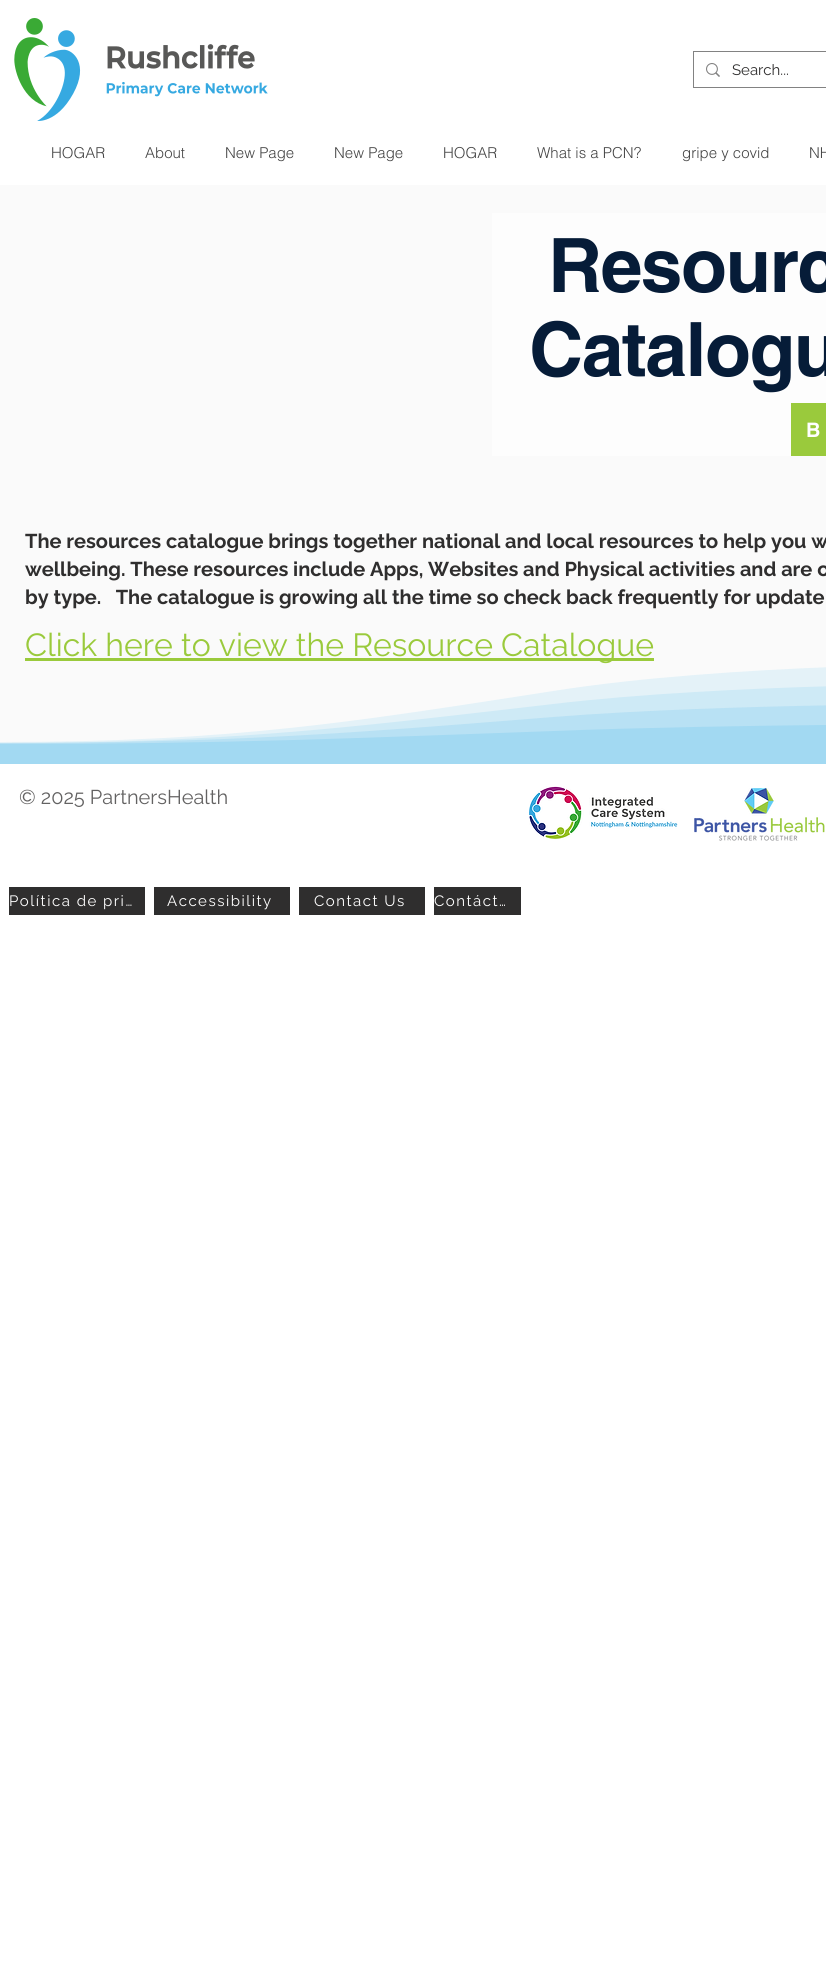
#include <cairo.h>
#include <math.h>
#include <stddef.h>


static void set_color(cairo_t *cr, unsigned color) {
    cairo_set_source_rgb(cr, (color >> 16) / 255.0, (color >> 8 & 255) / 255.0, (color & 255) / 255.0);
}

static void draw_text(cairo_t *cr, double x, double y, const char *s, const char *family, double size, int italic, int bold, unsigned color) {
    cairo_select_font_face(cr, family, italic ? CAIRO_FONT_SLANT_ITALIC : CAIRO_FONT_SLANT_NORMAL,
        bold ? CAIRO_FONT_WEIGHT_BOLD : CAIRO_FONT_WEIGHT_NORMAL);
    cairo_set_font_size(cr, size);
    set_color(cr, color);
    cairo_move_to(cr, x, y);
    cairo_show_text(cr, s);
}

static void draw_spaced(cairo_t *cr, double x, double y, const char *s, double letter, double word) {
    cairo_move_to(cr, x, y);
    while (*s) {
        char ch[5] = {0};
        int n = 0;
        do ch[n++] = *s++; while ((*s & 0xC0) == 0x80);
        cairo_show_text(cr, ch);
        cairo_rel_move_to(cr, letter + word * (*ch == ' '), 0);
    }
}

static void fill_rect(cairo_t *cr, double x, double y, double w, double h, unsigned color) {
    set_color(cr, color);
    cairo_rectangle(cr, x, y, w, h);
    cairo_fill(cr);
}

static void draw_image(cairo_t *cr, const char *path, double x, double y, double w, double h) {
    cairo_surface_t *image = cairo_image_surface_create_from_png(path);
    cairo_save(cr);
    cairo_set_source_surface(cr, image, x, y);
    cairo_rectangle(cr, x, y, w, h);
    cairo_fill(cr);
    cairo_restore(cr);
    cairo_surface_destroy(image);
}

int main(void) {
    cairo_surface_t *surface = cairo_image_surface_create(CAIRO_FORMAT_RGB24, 826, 1977);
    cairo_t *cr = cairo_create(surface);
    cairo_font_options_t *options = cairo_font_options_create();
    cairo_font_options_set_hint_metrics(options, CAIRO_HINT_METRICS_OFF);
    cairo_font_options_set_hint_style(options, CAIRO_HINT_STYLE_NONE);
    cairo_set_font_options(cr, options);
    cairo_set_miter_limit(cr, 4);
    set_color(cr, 0xFFFFFF);
    cairo_paint(cr);
    draw_image(cr, "assets/img1.png", 14, 18, 254, 103);
    cairo_rectangle(cr, 693.5, 51.5, 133, 36);
    set_color(cr, 0x828282);
    cairo_set_line_width(cr, 1);
    cairo_stroke(cr);
    draw_image(cr, "assets/img2.png", 706, 63, 14, 14);
    draw_text(cr, 732, 75, "Search...", "Raleway", 15, 0, 0, 0x2F2E2E);
    draw_text(cr, 51, 158, "HOGAR", "helvetica Light", 15, 0, 0, 0x444444);
    draw_text(cr, 145, 158, "About", "helvetica Light", 15, 0, 0, 0x444444);
    draw_text(cr, 225, 158, "New Page", "helvetica Light", 15, 0, 0, 0x444444);
    draw_text(cr, 334, 158, "New Page", "helvetica Light", 15, 0, 0, 0x444444);
    draw_text(cr, 443, 158, "HOGAR", "helvetica Light", 15, 0, 0, 0x444444);
    draw_text(cr, 537, 158, "What is a PCN?", "helvetica Light", 15, 0, 0, 0x444444);
    draw_text(cr, 682, 158, "gripe y covid", "helvetica Light", 15, 0, 0, 0x444444);
    draw_text(cr, 809, 158, "NH", "helvetica Light", 15, 0, 0, 0x444444);
    fill_rect(cr, 0, 185, 826, 557, 0xFAFAFA);
    fill_rect(cr, 492, 213, 334, 243, 0xFDFDFD);
    cairo_select_font_face(cr, "helvetica", CAIRO_FONT_SLANT_NORMAL, CAIRO_FONT_WEIGHT_BOLD);
    cairo_set_font_size(cr, 75);
    set_color(cr, 0x061C38);
    draw_spaced(cr, 548, 292, "Resourc", -1.5, 0);
    draw_spaced(cr, 529, 376, "Catalogu", -1.5, 0);
    fill_rect(cr, 791, 403, 35, 53, 0x9ACA3C);
    draw_text(cr, 806, 437, "B", "helvetica", 20, 0, 1, 0xFFFFFF);
    draw_text(cr, 25, 548, "The resources catalogue brings together national and local resources to help you w", "Raleway", 20, 0, 1, 0x2F2E2E);
    draw_text(cr, 25, 576, "wellbeing. These resources include Apps, Websites and Physical activities and are o", "Raleway", 20, 0, 1, 0x2F2E2E);
    draw_text(cr, 25, 604, "by type.   The catalogue is growing all the time so check back frequently for update", "Raleway", 20, 0, 1, 0x2F2E2E);
    fill_rect(cr, 25, 658, 629, 3, 0x9ACA3C);
    draw_text(cr, 25, 656, "Click here to view the Resource Catalogue", "Raleway", 32, 0, 0, 0x9ACA3C);
    set_color(cr, 0xE4F2F8);
    cairo_new_path(cr);
    cairo_move_to(cr, 0, 744);
    cairo_line_to(cr, 0, 742);
    cairo_curve_to(cr, 232, 742, 353, 722, 553, 691);
    cairo_curve_to(cr, 730, 663, 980, 664, 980, 664);
    cairo_line_to(cr, 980, 744);
    cairo_close_path(cr);
    cairo_fill(cr);
    set_color(cr, 0xCEEAF6);
    cairo_new_path(cr);
    cairo_move_to(cr, 0, 744);
    cairo_line_to(cr, 0, 743);
    cairo_curve_to(cr, 232, 743, 353, 727, 553, 704);
    cairo_curve_to(cr, 730, 683, 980, 684, 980, 684);
    cairo_line_to(cr, 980, 744);
    cairo_close_path(cr);
    cairo_fill(cr);
    cairo_set_source_rgba(cr, 0.635, 0.851, 0.949, 0.5);
    cairo_new_path(cr);
    cairo_move_to(cr, 0, 744);
    cairo_line_to(cr, 0, 743);
    cairo_curve_to(cr, 232, 743, 353, 733, 553, 717);
    cairo_curve_to(cr, 730, 703, 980, 704, 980, 704);
    cairo_line_to(cr, 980, 744);
    cairo_close_path(cr);
    cairo_fill(cr);
    set_color(cr, 0xA2D9F2);
    cairo_new_path(cr);
    cairo_move_to(cr, 0, 744);
    cairo_curve_to(cr, 232, 744, 353, 738, 553, 731);
    cairo_curve_to(cr, 730, 724, 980, 724, 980, 724);
    cairo_line_to(cr, 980, 744);
    cairo_close_path(cr);
    cairo_fill(cr);
    fill_rect(cr, 0, 744, 826, 20, 0xA2D9F2);
    draw_text(cr, 19, 804, "© 2025 PartnersHealth", "Raleway", 20, 0, 0, 0x636262);
    draw_image(cr, "assets/img3.png", 529, 786, 149, 54);
    draw_image(cr, "assets/img4.png", 694, 788, 131, 53);
    fill_rect(cr, 9, 887, 136, 28, 0x2F2E2E);
    cairo_set_font_size(cr, 15);
    set_color(cr, 0xFFFFFF);
    draw_spaced(cr, 9, 906, "Política de pri…", 1.5, 0);
    fill_rect(cr, 154, 887, 136, 28, 0x2F2E2E);
    set_color(cr, 0xFFFFFF);
    draw_spaced(cr, 167, 906, "Accessibility", 1.5, 0);
    fill_rect(cr, 299, 887, 126, 28, 0x2F2E2E);
    set_color(cr, 0xFFFFFF);
    draw_spaced(cr, 314, 906, "Contact Us", 1.5, 0);
    fill_rect(cr, 434, 887, 87, 28, 0x2F2E2E);
    set_color(cr, 0xFFFFFF);
    draw_spaced(cr, 434, 906, "Contáct…", 1.5, 0);
    cairo_surface_write_to_png(surface, "output.png");
    cairo_font_options_destroy(options);
    cairo_destroy(cr);
    cairo_surface_destroy(surface);
    return 0;
}
